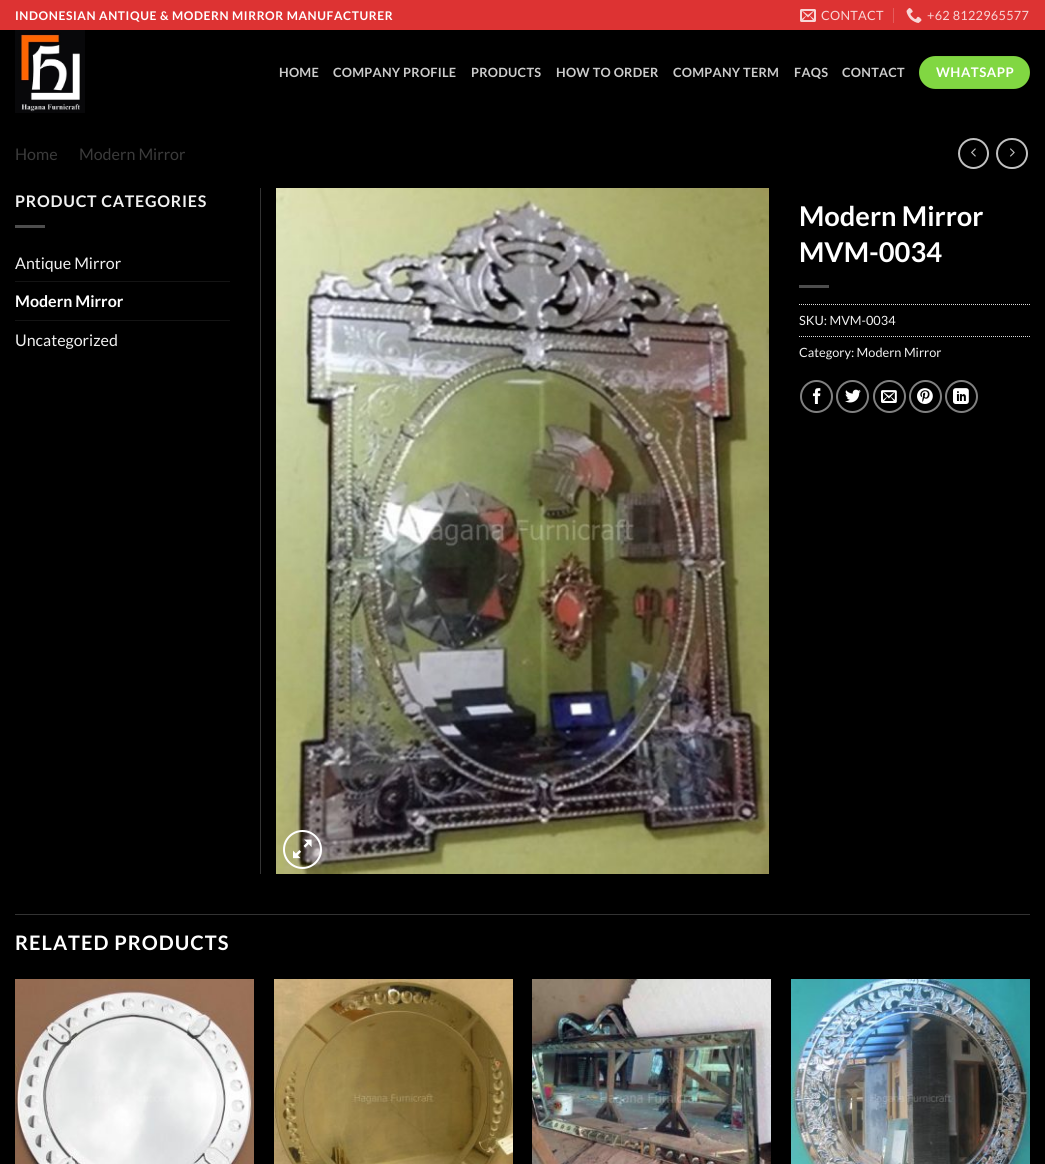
#include <cairo.h>
#include <math.h>
#include <stddef.h>


static void set_color(cairo_t *cr, unsigned color) {
    cairo_set_source_rgb(cr, (color >> 16) / 255.0, (color >> 8 & 255) / 255.0, (color & 255) / 255.0);
}

static void draw_text(cairo_t *cr, double x, double y, const char *s, const char *family, double size, int italic, int bold, unsigned color) {
    cairo_select_font_face(cr, family, italic ? CAIRO_FONT_SLANT_ITALIC : CAIRO_FONT_SLANT_NORMAL,
        bold ? CAIRO_FONT_WEIGHT_BOLD : CAIRO_FONT_WEIGHT_NORMAL);
    cairo_set_font_size(cr, size);
    set_color(cr, color);
    cairo_move_to(cr, x, y);
    cairo_show_text(cr, s);
}

static void draw_spaced(cairo_t *cr, double x, double y, const char *s, double letter, double word) {
    cairo_move_to(cr, x, y);
    while (*s) {
        char ch[5] = {0};
        int n = 0;
        do ch[n++] = *s++; while ((*s & 0xC0) == 0x80);
        cairo_show_text(cr, ch);
        cairo_rel_move_to(cr, letter + word * (*ch == ' '), 0);
    }
}

static void fill_rect(cairo_t *cr, double x, double y, double w, double h, unsigned color) {
    set_color(cr, color);
    cairo_rectangle(cr, x, y, w, h);
    cairo_fill(cr);
}

static void rounded_rect(cairo_t *cr, double x, double y, double w, double h, double r) {
    cairo_new_sub_path(cr);
    cairo_arc(cr, x + w - r, y + h - r, r, 0, M_PI / 2);
    cairo_arc(cr, x + r, y + h - r, r, M_PI / 2, M_PI);
    cairo_arc(cr, x + r, y + r, r, M_PI, 1.5 * M_PI);
    cairo_arc(cr, x + w - r, y + r, r, 1.5 * M_PI, 2 * M_PI);
    cairo_close_path(cr);
}

static void draw_image(cairo_t *cr, const char *path, double x, double y, double w, double h) {
    cairo_surface_t *image = cairo_image_surface_create_from_png(path);
    cairo_save(cr);
    cairo_set_source_surface(cr, image, x, y);
    cairo_rectangle(cr, x, y, w, h);
    cairo_fill(cr);
    cairo_restore(cr);
    cairo_surface_destroy(image);
}

int main(void) {
    cairo_surface_t *surface = cairo_image_surface_create(CAIRO_FORMAT_RGB24, 1045, 1164);
    cairo_t *cr = cairo_create(surface);
    cairo_font_options_t *options = cairo_font_options_create();
    cairo_font_options_set_hint_metrics(options, CAIRO_HINT_METRICS_OFF);
    cairo_font_options_set_hint_style(options, CAIRO_HINT_STYLE_NONE);
    cairo_set_font_options(cr, options);
    cairo_set_miter_limit(cr, 4);
    set_color(cr, 0x000000);
    cairo_paint(cr);
    fill_rect(cr, 0, 0, 1045, 30, 0xDD3333);
    cairo_select_font_face(cr, "Lato", CAIRO_FONT_SLANT_NORMAL, CAIRO_FONT_WEIGHT_BOLD);
    cairo_set_font_size(cr, 12);
    set_color(cr, 0xFFFFFF);
    draw_spaced(cr, 15, 20, "INDONESIAN ANTIQUE & MODERN MIRROR MANUFACTURER", 0.6, 0);
    draw_image(cr, "assets/img1.png", 800, 9, 16, 13);
    cairo_select_font_face(cr, "Lato", CAIRO_FONT_SLANT_NORMAL, CAIRO_FONT_WEIGHT_NORMAL);
    cairo_set_font_size(cr, 12.75);
    set_color(cr, 0xF8D6D6);
    draw_spaced(cr, 821, 20, "CONTACT", 0.25, 0);
    fill_rect(cr, 893, 8, 1, 15, 0xE45C5C);
    draw_image(cr, "assets/img2.png", 906, 8, 16, 15);
    set_color(cr, 0xF8D6D6);
    draw_spaced(cr, 927, 20, "+62 8122965577", 0.25, 0);
    draw_image(cr, "assets/img3.png", 15, 30, 70, 83);
    cairo_select_font_face(cr, "Lato", CAIRO_FONT_SLANT_NORMAL, CAIRO_FONT_WEIGHT_BOLD);
    set_color(cr, 0xCCCCCC);
    draw_spaced(cr, 279, 77, "HOME", 0.25, 0);
    draw_spaced(cr, 333, 77, "COMPANY PROFILE", 0.25, 0);
    draw_spaced(cr, 471, 77, "PRODUCTS", 0.25, 0);
    draw_spaced(cr, 556, 77, "HOW TO ORDER", 0.25, 0);
    draw_spaced(cr, 673, 77, "COMPANY TERM", 0.25, 0);
    draw_spaced(cr, 794, 77, "FAQS", 0.25, 0);
    draw_spaced(cr, 842, 77, "CONTACT", 0.25, 0);
    set_color(cr, 0x81D742);
    rounded_rect(cr, 919, 56, 111, 33, 16.5);
    cairo_fill(cr);
    cairo_rectangle(cr, 919.5, 56.5, 110, 32);
    cairo_set_source_rgba(cr, 0, 0, 0, 0.05);
    cairo_set_line_width(cr, 1);
    cairo_stroke(cr);
    cairo_set_font_size(cr, 13.25);
    set_color(cr, 0xFFFFFF);
    draw_spaced(cr, 936, 77, "WHATSAPP", 0.5, 0);
    draw_text(cr, 15, 160, "Home", "Lato", 16, 0, 0, 0x3B3B3B);
    draw_text(cr, 79, 160, "Modern Mirror", "Lato", 16, 0, 0, 0x3B3B3B);
    cairo_new_path(cr);
    cairo_arc(cr, 973.5, 153.5, 14.5, 0, 2 * M_PI);
    set_color(cr, 0xC0C0C0);
    cairo_set_line_width(cr, 2);
    cairo_stroke(cr);
    draw_image(cr, "assets/img4.png", 971, 148, 5, 9);
    rounded_rect(cr, 997, 139, 30, 29, 14.5);
    cairo_stroke(cr);
    draw_image(cr, "assets/img5.png", 1010, 148, 5, 9);
    fill_rect(cr, 260, 188, 1, 686, 0x333333);
    cairo_select_font_face(cr, "Lato", CAIRO_FONT_SLANT_NORMAL, CAIRO_FONT_WEIGHT_BOLD);
    set_color(cr, 0xF1F1F1);
    draw_spaced(cr, 15, 207, "PRODUCT CATEGORIES", 0.75, 0);
    fill_rect(cr, 15, 225, 30, 3, 0x4D4D4D);
    draw_text(cr, 15, 269, "Antique Mirror", "Lato", 16, 0, 0, 0xF1F1F1);
    fill_rect(cr, 15, 281, 215, 1, 0x141414);
    draw_text(cr, 15, 307, "Modern Mirror", "Lato", 16, 0, 1, 0xFFFFFF);
    fill_rect(cr, 15, 320, 215, 1, 0x141414);
    draw_text(cr, 15, 346, "Uncategorized", "Lato", 16, 0, 0, 0xF1F1F1);
    draw_image(cr, "assets/img6.png", 276, 188, 493, 686);
    cairo_arc(cr, 302.5, 849.5, 18.5, 0, 2 * M_PI);
    set_color(cr, 0xFFFFFF);
    cairo_stroke(cr);
    draw_image(cr, "assets/img7.png", 293, 839, 19, 20);
    draw_text(cr, 799, 226, "Modern Mirror", "Lato", 27.25, 0, 1, 0xFFFFFF);
    draw_text(cr, 799, 262, "MVM-0034", "Lato", 27.25, 0, 1, 0xFFFFFF);
    fill_rect(cr, 799, 285, 30, 3, 0x4D4D4D);
    cairo_new_path(cr);
    cairo_move_to(cr, 799, 304.5);
    cairo_line_to(cr, 1030, 304.5);
    set_color(cr, 0xDDDDDD);
    cairo_set_line_width(cr, 1);
    cairo_set_dash(cr, (double[]){1, 1}, 2, 0);
    cairo_stroke(cr);
    draw_text(cr, 799, 325, "SKU: MVM-0034", "Lato", 12.75, 0, 0, 0xF1F1F1);
    cairo_new_path(cr);
    cairo_move_to(cr, 799, 336.5);
    cairo_line_to(cr, 1030, 336.5);
    set_color(cr, 0xDDDDDD);
    cairo_stroke(cr);
    draw_text(cr, 799, 357, "Category: Modern Mirror", "Lato", 12.75, 0, 0, 0xF1F1F1);
    cairo_new_path(cr);
    cairo_arc(cr, 816.5, 396.5, 15.5, 0, 2 * M_PI);
    set_color(cr, 0x808080);
    cairo_set_line_width(cr, 2);
    cairo_set_dash(cr, NULL, 0, 0);
    cairo_stroke(cr);
    draw_image(cr, "assets/img8.png", 812, 388, 9, 16);
    cairo_arc(cr, 852.5, 396.5, 15.5, 0, 2 * M_PI);
    cairo_stroke(cr);
    draw_image(cr, "assets/img9.png", 845, 389, 16, 14);
    cairo_arc(cr, 889.5, 396.5, 15.5, 0, 2 * M_PI);
    cairo_stroke(cr);
    draw_image(cr, "assets/img10.png", 881, 390, 16, 13);
    cairo_arc(cr, 925.5, 396.5, 15.5, 0, 2 * M_PI);
    cairo_stroke(cr);
    draw_image(cr, "assets/img11.png", 917, 388, 16, 16);
    cairo_arc(cr, 961.5, 396.5, 15.5, 0, 2 * M_PI);
    cairo_stroke(cr);
    draw_image(cr, "assets/img12.png", 953, 388, 16, 16);
    fill_rect(cr, 15, 914, 1015, 1, 0x333333);
    cairo_select_font_face(cr, "Lato", CAIRO_FONT_SLANT_NORMAL, CAIRO_FONT_WEIGHT_BOLD);
    cairo_set_font_size(cr, 20);
    set_color(cr, 0xFFFFFF);
    draw_spaced(cr, 15, 950, "RELATED PRODUCTS", 1, 0);
    draw_image(cr, "assets/img13.png", 15, 979, 239, 185);
    draw_image(cr, "assets/img14.png", 274, 979, 239, 185);
    draw_image(cr, "assets/img15.png", 532, 979, 239, 185);
    draw_image(cr, "assets/img16.png", 791, 979, 239, 185);
    cairo_surface_write_to_png(surface, "output.png");
    cairo_font_options_destroy(options);
    cairo_destroy(cr);
    cairo_surface_destroy(surface);
    return 0;
}
